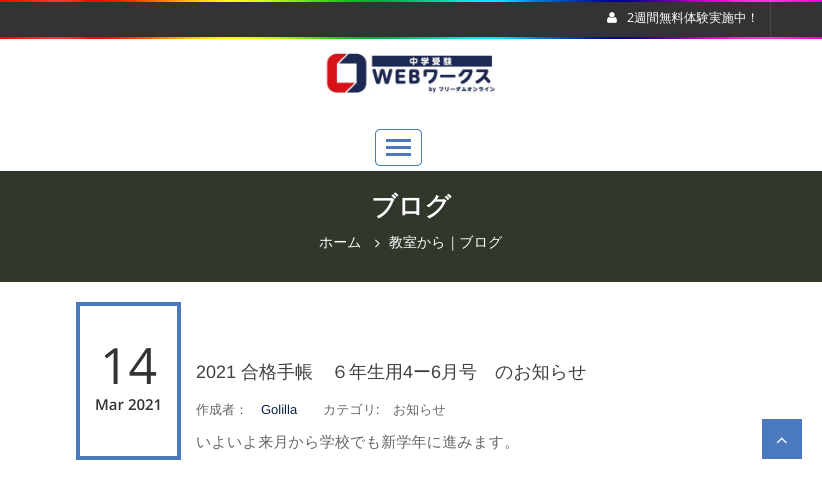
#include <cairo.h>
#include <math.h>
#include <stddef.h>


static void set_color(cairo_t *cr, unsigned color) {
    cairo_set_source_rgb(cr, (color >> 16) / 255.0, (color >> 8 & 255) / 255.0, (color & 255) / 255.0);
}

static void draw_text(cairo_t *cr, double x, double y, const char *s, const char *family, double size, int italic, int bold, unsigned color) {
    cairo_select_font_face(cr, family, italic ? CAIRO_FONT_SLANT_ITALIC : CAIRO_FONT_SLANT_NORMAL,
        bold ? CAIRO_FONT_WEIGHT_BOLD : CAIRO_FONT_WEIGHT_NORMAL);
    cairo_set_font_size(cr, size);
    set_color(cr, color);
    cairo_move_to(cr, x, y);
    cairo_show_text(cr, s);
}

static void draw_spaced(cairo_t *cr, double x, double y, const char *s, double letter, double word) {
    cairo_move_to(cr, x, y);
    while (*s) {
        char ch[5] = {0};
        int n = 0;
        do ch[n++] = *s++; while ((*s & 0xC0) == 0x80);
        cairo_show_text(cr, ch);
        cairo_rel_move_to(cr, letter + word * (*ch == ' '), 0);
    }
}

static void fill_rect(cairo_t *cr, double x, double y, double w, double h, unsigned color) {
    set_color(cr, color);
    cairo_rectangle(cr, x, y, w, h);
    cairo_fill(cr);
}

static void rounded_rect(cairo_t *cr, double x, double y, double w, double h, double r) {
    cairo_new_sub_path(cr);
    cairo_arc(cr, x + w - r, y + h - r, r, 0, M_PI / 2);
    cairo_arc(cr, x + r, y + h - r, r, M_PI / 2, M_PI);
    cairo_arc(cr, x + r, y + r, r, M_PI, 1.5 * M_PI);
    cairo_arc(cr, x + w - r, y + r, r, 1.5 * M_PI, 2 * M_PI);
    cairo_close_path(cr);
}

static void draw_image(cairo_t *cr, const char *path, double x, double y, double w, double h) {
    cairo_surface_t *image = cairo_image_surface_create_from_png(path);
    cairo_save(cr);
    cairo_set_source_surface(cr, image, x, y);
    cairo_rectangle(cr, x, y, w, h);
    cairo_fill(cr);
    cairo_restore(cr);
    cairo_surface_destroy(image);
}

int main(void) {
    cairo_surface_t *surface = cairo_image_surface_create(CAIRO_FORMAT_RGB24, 822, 479);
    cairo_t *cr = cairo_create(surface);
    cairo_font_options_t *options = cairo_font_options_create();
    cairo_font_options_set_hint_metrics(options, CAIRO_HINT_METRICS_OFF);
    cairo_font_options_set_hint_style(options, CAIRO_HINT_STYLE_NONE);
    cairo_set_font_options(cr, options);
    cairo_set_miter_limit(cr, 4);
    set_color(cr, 0xFFFFFF);
    cairo_paint(cr);
    fill_rect(cr, 0, 2, 822, 35, 0x333333);
    fill_rect(cr, 770, 0, 1, 37, 0x484848);
    draw_image(cr, "assets/img1.png", 0, 0, 822, 2);
    draw_image(cr, "assets/img2.png", 607, 12, 10, 11);
    draw_text(cr, 627, 22, "2", "Open Sans", 12.5, 0, 0, 0xFFFFFF);
    draw_text(cr, 634, 22, "週間無料体験実施中！", "WenQuanYi Zen Hei Medium", 12.5, 0, 0, 0xFFFFFF);
    draw_image(cr, "assets/img1.png", 0, 37, 822, 2);
    draw_image(cr, "assets/img3.png", 324, 49, 172, 48);
    rounded_rect(cr, 375.5, 129.5, 46, 36, 4.5);
    set_color(cr, 0x4A7ABD);
    cairo_set_line_width(cr, 1);
    cairo_stroke(cr);
    fill_rect(cr, 386, 139, 25, 3, 0x4A7ABD);
    fill_rect(cr, 386, 146, 25, 3, 0x4A7ABD);
    fill_rect(cr, 386, 153, 25, 3, 0x4A7ABD);
    fill_rect(cr, 0, 171, 822, 111, 0x31382B);
    draw_text(cr, 371, 215, "ブログ", "WenQuanYi Zen Hei", 26, 0, 1, 0xFFFFFF);
    draw_text(cr, 319, 247, "ホーム", "WenQuanYi Zen Hei Medium", 14, 0, 0, 0xFFFFFF);
    draw_image(cr, "assets/img4.png", 375, 239, 5, 9);
    draw_text(cr, 389, 247, "教室から｜ブログ", "WenQuanYi Zen Hei Medium", 14, 0, 0, 0xFFFFFF);
    cairo_rectangle(cr, 78, 304, 101, 154);
    set_color(cr, 0x4A7ABD);
    cairo_set_line_width(cr, 4);
    cairo_stroke(cr);
    draw_text(cr, 100, 384, "14", "Open Sans", 50, 0, 0, 0x333333);
    draw_text(cr, 95, 410, "Mar 2021", "Open Sans SemiBold", 15, 0, 0, 0x333333);
    draw_text(cr, 196, 378, "2021", "Liberation Sans", 18, 0, 0, 0x404040);
    draw_text(cr, 241, 378, "合格手帳　６年生用", "WenQuanYi Zen Hei Medium", 18, 0, 0, 0x404040);
    draw_text(cr, 403, 378, "4", "Liberation Sans", 18, 0, 0, 0x404040);
    draw_text(cr, 413, 378, "ー", "WenQuanYi Zen Hei Medium", 18, 0, 0, 0x404040);
    draw_text(cr, 431, 378, "6", "Liberation Sans", 18, 0, 0, 0x404040);
    draw_text(cr, 441, 378, "月号　のお知らせ", "WenQuanYi Zen Hei Medium", 18, 0, 0, 0x404040);
    draw_text(cr, 196, 414, "作成者：", "WenQuanYi Zen Hei Medium", 13, 0, 0, 0x666666);
    draw_text(cr, 261, 414, "Golilla", "Liberation Sans", 13, 0, 0, 0x0D2046);
    draw_text(cr, 323, 414, "カテゴリ", "WenQuanYi Zen Hei Medium", 13, 0, 0, 0x666666);
    draw_text(cr, 376, 414, ":", "Open Sans", 13, 0, 0, 0x666666);
    draw_text(cr, 393, 414, "お知らせ", "WenQuanYi Zen Hei Medium", 13, 0, 0, 0x666666);
    cairo_set_font_size(cr, 15);
    draw_spaced(cr, 196, 447, "いよいよ来月から学校でも新学年に進みます。", 0.2, 0);
    fill_rect(cr, 762, 419, 40, 40, 0x4A7ABD);
    draw_image(cr, "assets/img5.png", 776, 437, 11, 7);
    cairo_surface_write_to_png(surface, "output.png");
    cairo_font_options_destroy(options);
    cairo_destroy(cr);
    cairo_surface_destroy(surface);
    return 0;
}
